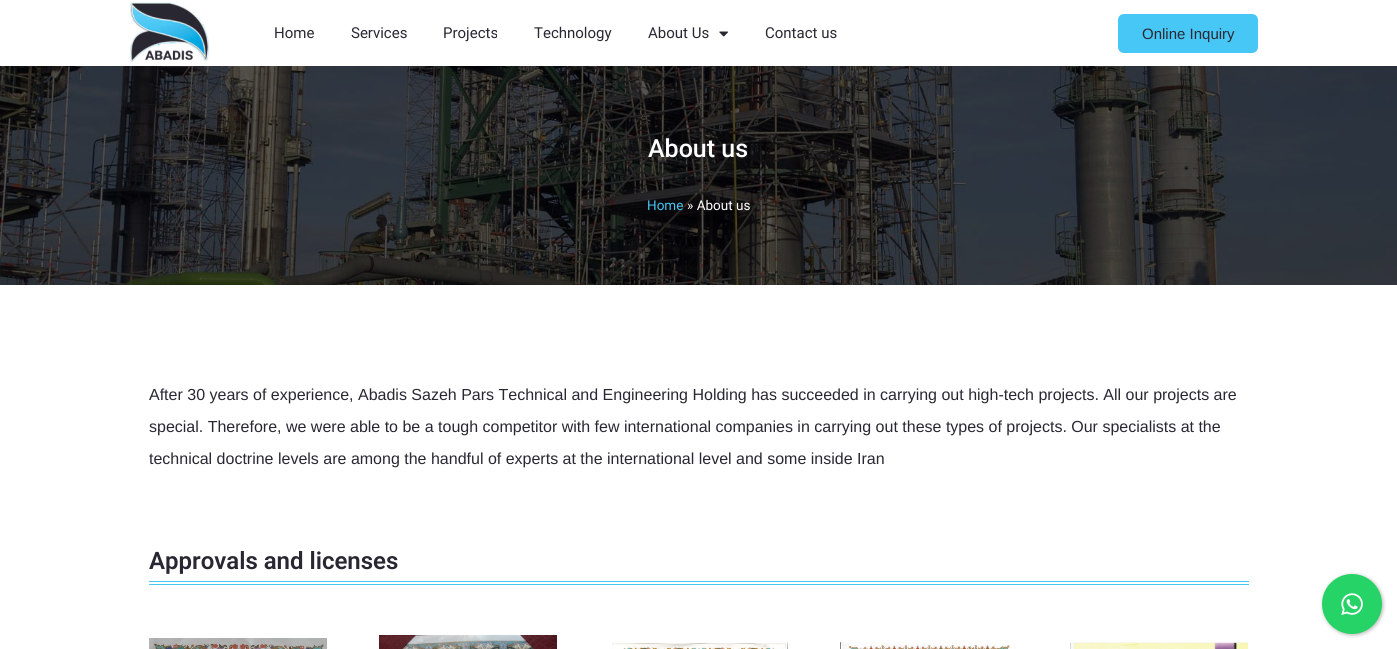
#include <cairo.h>
#include <math.h>
#include <stddef.h>


static void set_color(cairo_t *cr, unsigned color) {
    cairo_set_source_rgb(cr, (color >> 16) / 255.0, (color >> 8 & 255) / 255.0, (color & 255) / 255.0);
}

static void draw_text(cairo_t *cr, double x, double y, const char *s, const char *family, double size, int italic, int bold, unsigned color) {
    cairo_select_font_face(cr, family, italic ? CAIRO_FONT_SLANT_ITALIC : CAIRO_FONT_SLANT_NORMAL,
        bold ? CAIRO_FONT_WEIGHT_BOLD : CAIRO_FONT_WEIGHT_NORMAL);
    cairo_set_font_size(cr, size);
    set_color(cr, color);
    cairo_move_to(cr, x, y);
    cairo_show_text(cr, s);
}

static void fill_rect(cairo_t *cr, double x, double y, double w, double h, unsigned color) {
    set_color(cr, color);
    cairo_rectangle(cr, x, y, w, h);
    cairo_fill(cr);
}

static void rounded_rect(cairo_t *cr, double x, double y, double w, double h, double r) {
    cairo_new_sub_path(cr);
    cairo_arc(cr, x + w - r, y + h - r, r, 0, M_PI / 2);
    cairo_arc(cr, x + r, y + h - r, r, M_PI / 2, M_PI);
    cairo_arc(cr, x + r, y + r, r, M_PI, 1.5 * M_PI);
    cairo_arc(cr, x + w - r, y + r, r, 1.5 * M_PI, 2 * M_PI);
    cairo_close_path(cr);
}

static void draw_shadow(cairo_t *cr, double x, double y, double w, double h, double r, double blur, double alpha) {
    cairo_push_group_with_content(cr, CAIRO_CONTENT_ALPHA);
    cairo_set_operator(cr, CAIRO_OPERATOR_SOURCE);
    for (int i = 15; i >= -15 && fmin(w, h) + blur * i / 3 > 0; i -= 2) {
        double e = blur * i / 6;
        cairo_set_source_rgba(cr, 0, 0, 0, alpha * erfc((i - 1) / 8.5) / 2);
        rounded_rect(cr, x - e, y - e, w + 2 * e, h + 2 * e, fmax(0, fmin(r + e + blur * .6, fmin(w, h) / 2 + e)));
        cairo_fill(cr);
    }
    cairo_pattern_t *soft = cairo_pop_group(cr);
    cairo_mask(cr, soft);
    cairo_pattern_destroy(soft);
}

static void draw_image(cairo_t *cr, const char *path, double x, double y, double w, double h) {
    cairo_surface_t *image = cairo_image_surface_create_from_png(path);
    cairo_save(cr);
    cairo_set_source_surface(cr, image, x, y);
    cairo_rectangle(cr, x, y, w, h);
    cairo_fill(cr);
    cairo_restore(cr);
    cairo_surface_destroy(image);
}

int main(void) {
    cairo_surface_t *surface = cairo_image_surface_create(CAIRO_FORMAT_RGB24, 1397, 649);
    cairo_t *cr = cairo_create(surface);
    cairo_font_options_t *options = cairo_font_options_create();
    cairo_font_options_set_hint_metrics(options, CAIRO_HINT_METRICS_OFF);
    cairo_font_options_set_hint_style(options, CAIRO_HINT_STYLE_NONE);
    cairo_set_font_options(cr, options);
    cairo_set_miter_limit(cr, 4);
    set_color(cr, 0xFFFFFF);
    cairo_paint(cr);
    draw_image(cr, "assets/img1.png", 129, 2, 80, 60);
    draw_text(cr, 274, 38, "Home", "Roboto", 15, 0, 0, 0x292732);
    draw_text(cr, 351, 38, "Services", "Roboto", 15, 0, 0, 0x292732);
    draw_text(cr, 443, 38, "Projects", "Roboto", 15, 0, 0, 0x292732);
    draw_text(cr, 534, 38, "Technology", "Roboto", 15, 0, 0, 0x292732);
    draw_text(cr, 648, 38, "About Us", "Roboto", 15, 0, 0, 0x292732);
    draw_image(cr, "assets/img2.png", 719, 31, 9, 6);
    draw_text(cr, 765, 38, "Contact us", "Roboto", 15, 0, 0, 0x292732);
    set_color(cr, 0x47C7F6);
    rounded_rect(cr, 1118, 14, 140, 39, 6);
    cairo_fill(cr);
    draw_text(cr, 1142, 39, "Online Inquiry", "Liberation Sans", 15, 0, 0, 0x292732);
    draw_image(cr, "assets/img3.png", 0, 66, 1397, 219);
    draw_text(cr, 648, 157, "About us", "Roboto Medium", 25, 0, 0, 0xFFFFFF);
    draw_text(cr, 647, 210, "Home", "Roboto", 13.5, 0, 0, 0x47C7F6);
    draw_text(cr, 687, 210, "» About us", "Roboto", 13.5, 0, 0, 0xFFFFFF);
    draw_text(cr, 149, 400, "After 30 years of experience, Abadis Sazeh Pars Technical and Engineering Holding has succeeded in carrying out high-tech projects. All our projects are", "Liberation Sans", 16, 0, 0, 0x292732);
    draw_text(cr, 149, 432, "special. Therefore, we were able to be a tough competitor with few international companies in carrying out these types of projects. Our specialists at the", "Liberation Sans", 16, 0, 0, 0x292732);
    draw_text(cr, 149, 464, "technical doctrine levels are among the handful of experts at the international level and some inside Iran", "Liberation Sans", 16, 0, 0, 0x292732);
    fill_rect(cr, 149, 581, 1100, 1, 0x47C7F6);
    fill_rect(cr, 149, 584, 1100, 1, 0x47C7F6);
    draw_text(cr, 149, 569, "Approvals and licenses", "Roboto SemiBold", 24, 0, 0, 0x292732);
    draw_image(cr, "assets/img4.png", 149, 638, 178, 11);
    draw_image(cr, "assets/img5.png", 379, 635, 178, 14);
    draw_image(cr, "assets/img6.png", 609, 642, 179, 7);
    draw_image(cr, "assets/img7.png", 840, 642, 176, 7);
    draw_image(cr, "assets/img8.png", 1070, 642, 178, 7);
    set_color(cr, 0x000000);
    draw_shadow(cr, 1323, 575, 60, 60, 30, 2, 0.3);
    set_color(cr, 0x25D366);
    cairo_arc(cr, 1352, 604, 30, 0, 2 * M_PI);
    cairo_fill(cr);
    draw_image(cr, "assets/img9.png", 1341, 593, 22, 22);
    cairo_surface_write_to_png(surface, "output.png");
    cairo_font_options_destroy(options);
    cairo_destroy(cr);
    cairo_surface_destroy(surface);
    return 0;
}
